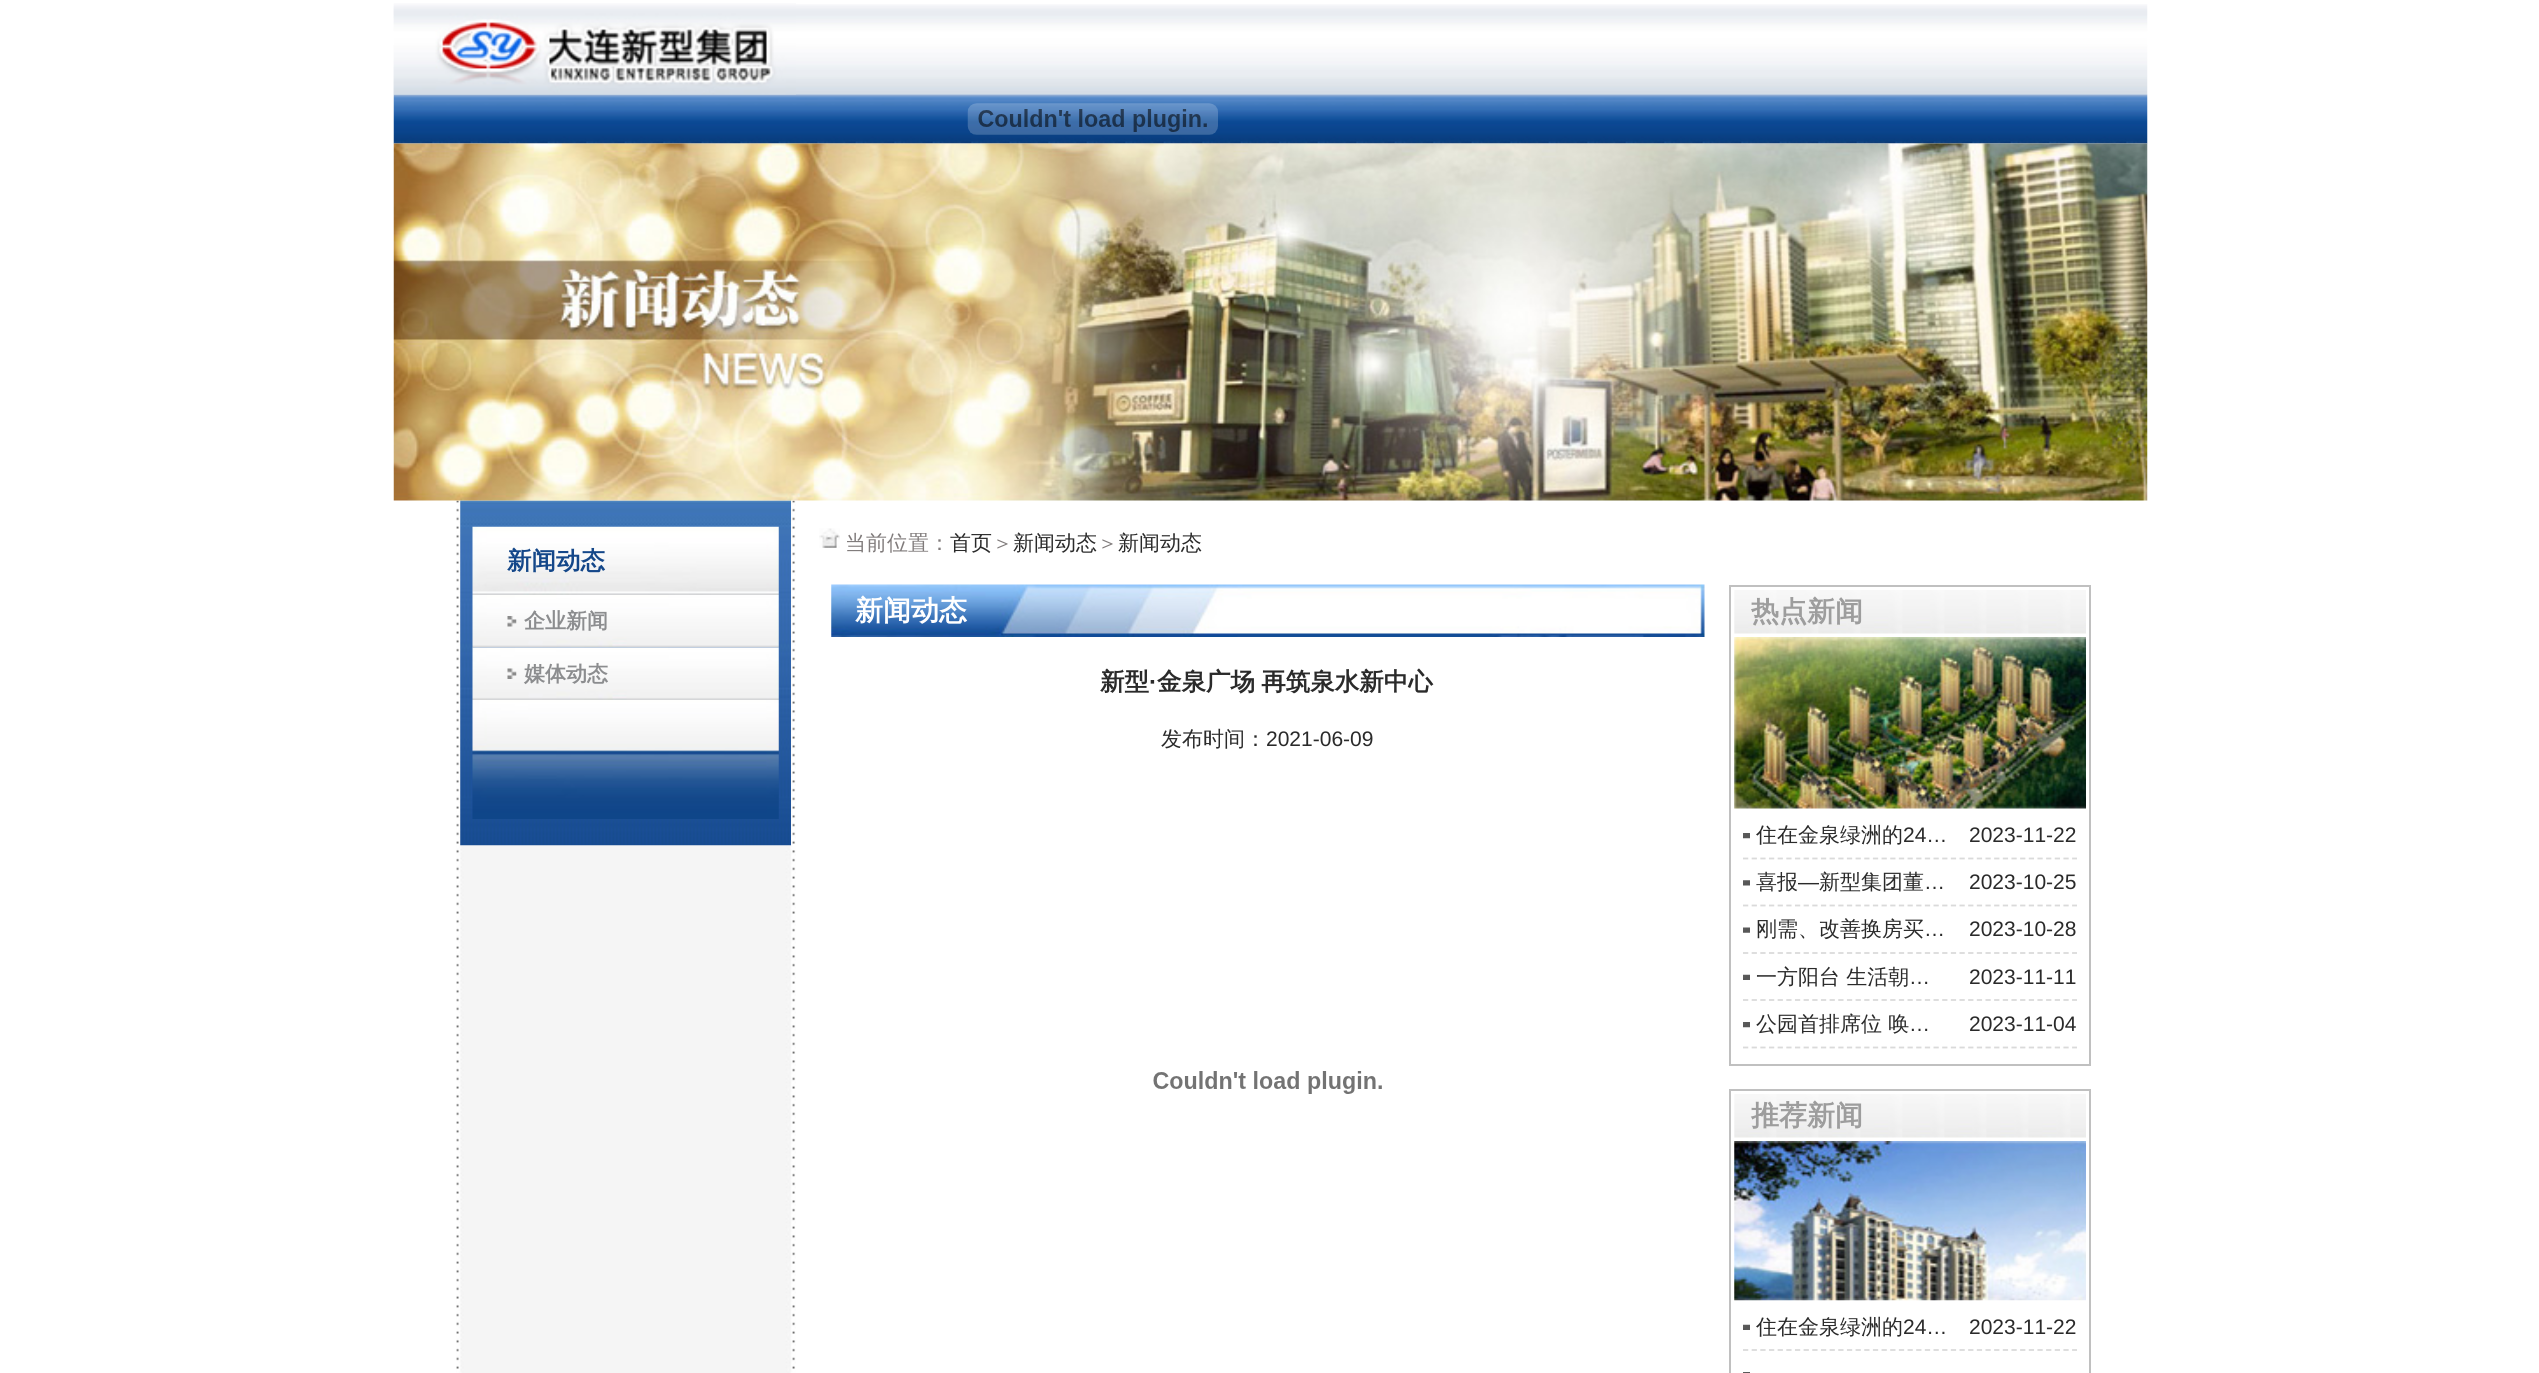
#include <cairo.h>
#include <math.h>
#include <stddef.h>


static void set_color(cairo_t *cr, unsigned color) {
    cairo_set_source_rgb(cr, (color >> 16) / 255.0, (color >> 8 & 255) / 255.0, (color & 255) / 255.0);
}

static void draw_text(cairo_t *cr, double x, double y, const char *s, const char *family, double size, int italic, int bold, unsigned color) {
    cairo_select_font_face(cr, family, italic ? CAIRO_FONT_SLANT_ITALIC : CAIRO_FONT_SLANT_NORMAL,
        bold ? CAIRO_FONT_WEIGHT_BOLD : CAIRO_FONT_WEIGHT_NORMAL);
    cairo_set_font_size(cr, size);
    set_color(cr, color);
    cairo_move_to(cr, x, y);
    cairo_show_text(cr, s);
}

static void draw_spaced(cairo_t *cr, double x, double y, const char *s, double letter, double word) {
    cairo_move_to(cr, x, y);
    while (*s) {
        char ch[5] = {0};
        int n = 0;
        do ch[n++] = *s++; while ((*s & 0xC0) == 0x80);
        cairo_show_text(cr, ch);
        cairo_rel_move_to(cr, letter + word * (*ch == ' '), 0);
    }
}

static void draw_image(cairo_t *cr, const char *path, double x, double y, double w, double h) {
    cairo_surface_t *image = cairo_image_surface_create_from_png(path);
    cairo_save(cr);
    cairo_set_source_surface(cr, image, x, y);
    cairo_rectangle(cr, x, y, w, h);
    cairo_fill(cr);
    cairo_restore(cr);
    cairo_surface_destroy(image);
}

int main(void) {
    cairo_surface_t *surface = cairo_image_surface_create(CAIRO_FORMAT_RGB24, 2539, 1373);
    cairo_t *cr = cairo_create(surface);
    cairo_font_options_t *options = cairo_font_options_create();
    cairo_font_options_set_hint_metrics(options, CAIRO_HINT_METRICS_OFF);
    cairo_font_options_set_hint_style(options, CAIRO_HINT_STYLE_NONE);
    cairo_set_font_options(cr, options);
    cairo_set_miter_limit(cr, 4);
    set_color(cr, 0xFFFFFF);
    cairo_paint(cr);
    draw_image(cr, "assets/img1.png", 393, 4, 1755, 91);
    draw_image(cr, "assets/img3.png", 393, 94, 1755, 50);
    draw_image(cr, "assets/img2.png", 393, 3, 403, 92);
    draw_image(cr, "assets/img4.png", 967, 103, 251, 32);
    draw_image(cr, "assets/img6.png", 456, 500, 340, 873);
    draw_image(cr, "assets/img7.png", 460, 500, 331, 346);
    draw_image(cr, "assets/img5.png", 393, 143, 1755, 358);
    draw_image(cr, "assets/img8.png", 472, 526, 307, 69);
    draw_text(cr, 507, 569, "新闻动态", "WenQuanYi Zen Hei", 24.5, 0, 1, 0x144789);
    draw_image(cr, "assets/img9.png", 472, 595, 307, 53);
    draw_image(cr, "assets/img10.png", 507, 616, 10, 11);
    draw_text(cr, 524, 628, "企业新闻", "WenQuanYi Zen Hei", 21, 0, 1, 0x8C8D8F);
    draw_image(cr, "assets/img11.png", 472, 647, 307, 53);
    draw_image(cr, "assets/img12.png", 507, 668, 10, 11);
    draw_text(cr, 524, 681, "媒体动态", "WenQuanYi Zen Hei", 21, 0, 1, 0x8C8D8F);
    draw_image(cr, "assets/img13.png", 472, 700, 307, 119);
    draw_image(cr, "assets/img14.png", 819, 528, 21, 20);
    draw_text(cr, 845, 550, "当前位置：", "WenQuanYi Zen Hei Medium", 21, 0, 0, 0x807B7B);
    draw_text(cr, 950, 550, "首页", "WenQuanYi Zen Hei Medium", 21, 0, 0, 0x2A2A2A);
    draw_text(cr, 992, 550, "＞", "WenQuanYi Zen Hei Medium", 21, 0, 0, 0x807B7B);
    draw_text(cr, 1013, 550, "新闻动态", "WenQuanYi Zen Hei Medium", 21, 0, 0, 0x2A2A2A);
    draw_text(cr, 1097, 550, "＞", "WenQuanYi Zen Hei Medium", 21, 0, 0, 0x807B7B);
    draw_text(cr, 1118, 550, "新闻动态", "WenQuanYi Zen Hei Medium", 21, 0, 0, 0x2A2A2A);
    draw_image(cr, "assets/img15.png", 831, 584, 874, 53);
    draw_text(cr, 855, 620, "新闻动态", "WenQuanYi Zen Hei", 28, 0, 1, 0xFFFFFF);
    draw_text(cr, 1100, 690, "新型", "WenQuanYi Zen Hei", 24.5, 0, 1, 0x2A2A2A);
    draw_text(cr, 1149, 690, "·", "Liberation Sans", 24.5, 0, 1, 0x2A2A2A);
    cairo_select_font_face(cr, "WenQuanYi Zen Hei", CAIRO_FONT_SLANT_NORMAL, CAIRO_FONT_WEIGHT_BOLD);
    draw_spaced(cr, 1157, 690, "金泉广场 再筑泉水新中心", 0, -1);
    draw_text(cr, 1161, 746, "发布时间：", "WenQuanYi Zen Hei Medium", 21, 0, 0, 0x2A2A2A);
    draw_text(cr, 1266, 746, "2021-06-09", "Liberation Sans", 21, 0, 0, 0x2A2A2A);
    draw_image(cr, "assets/img16.png", 1153, 1071, 229, 23);
    cairo_rectangle(cr, 1730, 586, 360, 479);
    set_color(cr, 0xC0C0C0);
    cairo_stroke(cr);
    draw_image(cr, "assets/img17.png", 1734, 590, 352, 44);
    draw_text(cr, 1751, 621, "热点新闻", "WenQuanYi Zen Hei", 28, 0, 1, 0x9D9D9D);
    draw_image(cr, "assets/img18.png", 1734, 637, 352, 172);
    draw_image(cr, "assets/img19.png", 1743, 833, 7, 6);
    cairo_new_path(cr);
    cairo_move_to(cr, 1743, 858.5);
    cairo_line_to(cr, 2077, 858.5);
    set_color(cr, 0xDADADA);
    cairo_set_line_width(cr, 1.8);
    cairo_set_dash(cr, (double[]){5.25, 3.41}, 2, 0);
    cairo_stroke(cr);
    draw_text(cr, 1756, 842, "住在金泉绿洲的", "WenQuanYi Zen Hei Medium", 21, 0, 0, 0x2A2A2A);
    draw_text(cr, 1903, 842, "24…", "Liberation Sans", 21, 0, 0, 0x2A2A2A);
    draw_text(cr, 1969, 842, "2023-11-22", "Liberation Sans", 21, 0, 0, 0x2A2A2A);
    draw_image(cr, "assets/img20.png", 1743, 880, 7, 6);
    cairo_new_path(cr);
    cairo_move_to(cr, 1743, 905.5);
    cairo_line_to(cr, 2077, 905.5);
    set_color(cr, 0xDADADA);
    cairo_stroke(cr);
    draw_text(cr, 1756, 889, "喜报", "WenQuanYi Zen Hei Medium", 21, 0, 0, 0x2A2A2A);
    draw_text(cr, 1798, 889, "—", "Liberation Sans", 21, 0, 0, 0x2A2A2A);
    draw_text(cr, 1819, 889, "新型集团董", "WenQuanYi Zen Hei Medium", 21, 0, 0, 0x2A2A2A);
    draw_text(cr, 1924, 889, "…", "Liberation Sans", 21, 0, 0, 0x2A2A2A);
    draw_text(cr, 1969, 889, "2023-10-25", "Liberation Sans", 21, 0, 0, 0x2A2A2A);
    draw_image(cr, "assets/img21.png", 1743, 927, 7, 6);
    cairo_new_path(cr);
    cairo_move_to(cr, 1743, 953);
    cairo_line_to(cr, 2077, 953);
    set_color(cr, 0xDADADA);
    cairo_stroke(cr);
    draw_text(cr, 1756, 936, "刚需、改善换房买", "WenQuanYi Zen Hei Medium", 21, 0, 0, 0x2A2A2A);
    draw_text(cr, 1924, 936, "…", "Liberation Sans", 21, 0, 0, 0x2A2A2A);
    draw_text(cr, 1969, 936, "2023-10-28", "Liberation Sans", 21, 0, 0, 0x2A2A2A);
    draw_image(cr, "assets/img22.png", 1743, 974, 7, 6);
    cairo_new_path(cr);
    cairo_move_to(cr, 1743, 1000);
    cairo_line_to(cr, 2077, 1000);
    set_color(cr, 0xDADADA);
    cairo_stroke(cr);
    draw_text(cr, 1756, 984, "一方阳台 生活朝", "WenQuanYi Zen Hei Medium", 21, 0, 0, 0x2A2A2A);
    draw_text(cr, 1909, 984, "…", "Liberation Sans", 21, 0, 0, 0x2A2A2A);
    draw_text(cr, 1969, 984, "2023-11-11", "Liberation Sans", 21, 0, 0, 0x2A2A2A);
    draw_image(cr, "assets/img19.png", 1743, 1022, 7, 6);
    cairo_new_path(cr);
    cairo_move_to(cr, 1743, 1047.5);
    cairo_line_to(cr, 2077, 1047.5);
    set_color(cr, 0xDADADA);
    cairo_stroke(cr);
    draw_text(cr, 1756, 1031, "公园首排席位 唤", "WenQuanYi Zen Hei Medium", 21, 0, 0, 0x2A2A2A);
    draw_text(cr, 1909, 1031, "…", "Liberation Sans", 21, 0, 0, 0x2A2A2A);
    draw_text(cr, 1969, 1031, "2023-11-04", "Liberation Sans", 21, 0, 0, 0x2A2A2A);
    cairo_rectangle(cr, 1730, 1090, 360, 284);
    set_color(cr, 0xC0C0C0);
    cairo_set_line_width(cr, 2);
    cairo_set_dash(cr, NULL, 0, 0);
    cairo_stroke(cr);
    draw_image(cr, "assets/img23.png", 1734, 1094, 352, 44);
    draw_text(cr, 1751, 1125, "推荐新闻", "WenQuanYi Zen Hei", 28, 0, 1, 0x9D9D9D);
    draw_image(cr, "assets/img24.png", 1734, 1141, 352, 160);
    draw_image(cr, "assets/img22.png", 1743, 1324, 7, 6);
    cairo_new_path(cr);
    cairo_move_to(cr, 1743, 1350);
    cairo_line_to(cr, 2077, 1350);
    set_color(cr, 0xDADADA);
    cairo_set_line_width(cr, 1.8);
    cairo_set_dash(cr, (double[]){5.25, 3.41}, 2, 0);
    cairo_stroke(cr);
    draw_text(cr, 1756, 1334, "住在金泉绿洲的", "WenQuanYi Zen Hei Medium", 21, 0, 0, 0x2A2A2A);
    draw_text(cr, 1903, 1334, "24…", "Liberation Sans", 21, 0, 0, 0x2A2A2A);
    draw_text(cr, 1969, 1334, "2023-11-22", "Liberation Sans", 21, 0, 0, 0x2A2A2A);
    draw_image(cr, "assets/img25.png", 1743, 1372, 7, 1);
    cairo_surface_write_to_png(surface, "output.png");
    cairo_font_options_destroy(options);
    cairo_destroy(cr);
    cairo_surface_destroy(surface);
    return 0;
}
